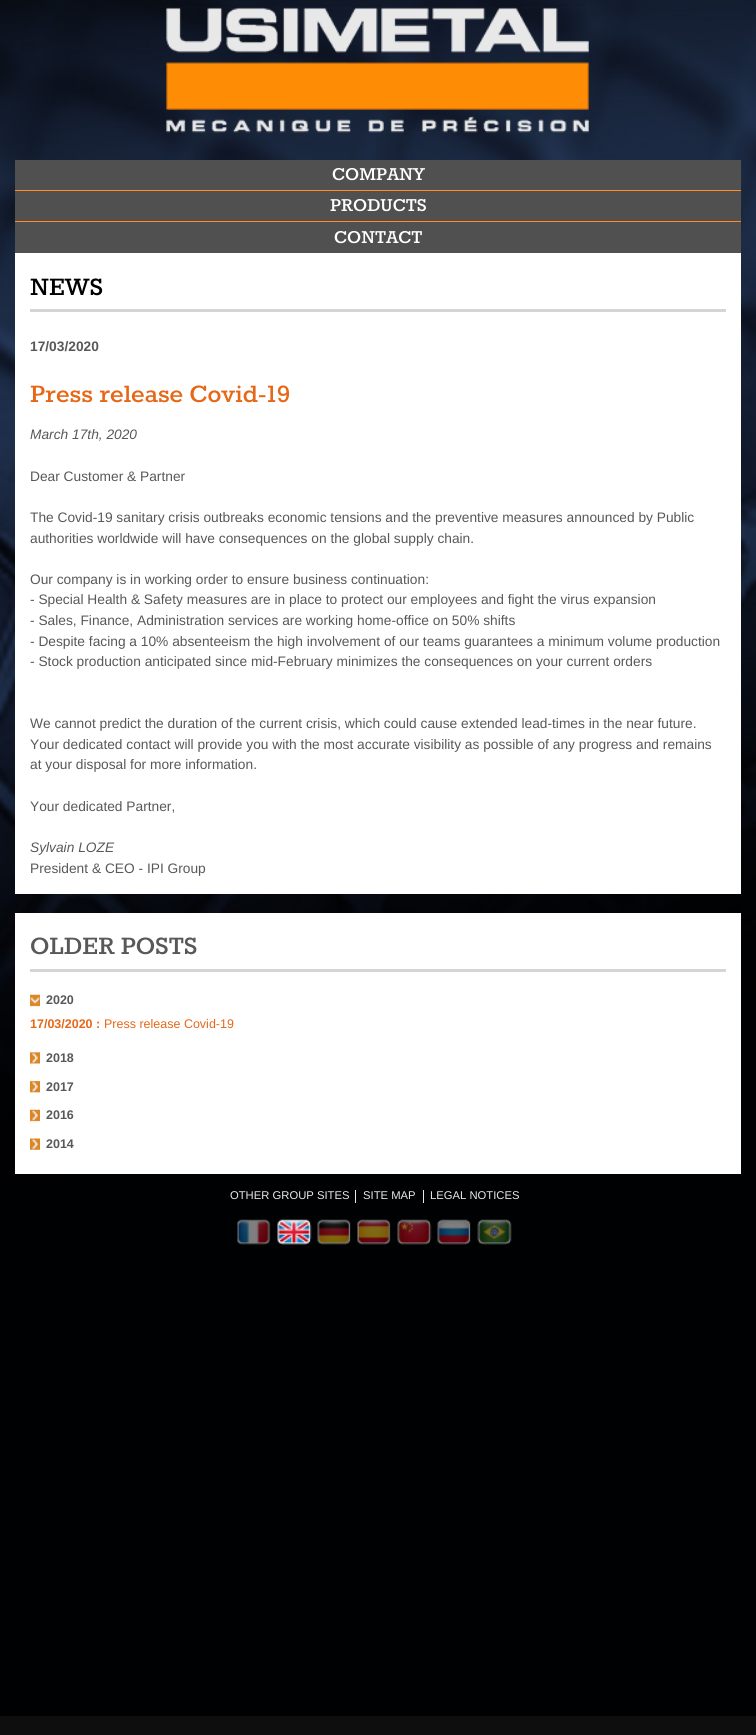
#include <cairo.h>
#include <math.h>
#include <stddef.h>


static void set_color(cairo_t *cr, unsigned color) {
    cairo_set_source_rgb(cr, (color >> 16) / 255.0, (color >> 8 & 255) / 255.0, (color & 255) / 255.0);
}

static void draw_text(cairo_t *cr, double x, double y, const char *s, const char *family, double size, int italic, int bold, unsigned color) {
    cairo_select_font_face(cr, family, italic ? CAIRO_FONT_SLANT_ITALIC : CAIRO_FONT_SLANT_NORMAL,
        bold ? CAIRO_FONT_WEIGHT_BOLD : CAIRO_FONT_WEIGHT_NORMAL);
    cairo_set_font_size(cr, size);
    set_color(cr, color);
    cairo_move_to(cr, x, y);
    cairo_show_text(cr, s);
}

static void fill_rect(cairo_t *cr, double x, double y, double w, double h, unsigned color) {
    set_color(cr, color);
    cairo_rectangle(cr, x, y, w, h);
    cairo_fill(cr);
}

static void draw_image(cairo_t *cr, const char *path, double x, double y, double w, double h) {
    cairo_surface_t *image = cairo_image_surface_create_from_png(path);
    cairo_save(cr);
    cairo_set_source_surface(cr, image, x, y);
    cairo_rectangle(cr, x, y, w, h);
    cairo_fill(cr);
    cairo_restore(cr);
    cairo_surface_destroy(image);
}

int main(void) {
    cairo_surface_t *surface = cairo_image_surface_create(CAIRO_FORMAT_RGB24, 756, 1735);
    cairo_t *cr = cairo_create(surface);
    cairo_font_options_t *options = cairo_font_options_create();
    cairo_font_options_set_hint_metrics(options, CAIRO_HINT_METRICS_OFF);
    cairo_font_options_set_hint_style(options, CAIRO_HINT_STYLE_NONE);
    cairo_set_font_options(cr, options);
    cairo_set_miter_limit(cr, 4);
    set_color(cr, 0x0E0E0E);
    cairo_paint(cr);
    draw_image(cr, "assets/img1.png", 0, 0, 756, 1716);
    draw_image(cr, "assets/img2.png", 166, 7, 423, 126);
    fill_rect(cr, 15, 160, 726, 93, 0x505050);
    fill_rect(cr, 15, 190, 726, 1, 0xFF8D22);
    draw_text(cr, 332, 180, "COMPANY", "Rokkitt", 20, 0, 1, 0xFFFFFF);
    fill_rect(cr, 15, 221, 726, 1, 0xFF8D22);
    draw_text(cr, 330, 211, "PRODUCTS", "Rokkitt", 20, 0, 1, 0xFFFFFF);
    draw_text(cr, 334, 243, "CONTACT", "Rokkitt", 20, 0, 1, 0xFFFFFF);
    fill_rect(cr, 15, 253, 726, 641, 0xFFFFFF);
    fill_rect(cr, 30, 309, 696, 3, 0xD4D5D7);
    draw_text(cr, 30, 295, "NEWS", "Rokkitt", 27.5, 0, 1, 0x000000);
    draw_text(cr, 30, 351, "17/03/2020", "Liberation Sans", 13.75, 0, 1, 0x58585A);
    draw_text(cr, 30, 402, "Press release Covid-19", "Rokkitt", 27.5, 0, 1, 0xE66717);
    draw_text(cr, 30, 439, "March 17th, 2020", "Liberation Sans", 13.75, 1, 0, 0x58585A);
    draw_text(cr, 30, 481, "Dear Customer & Partner", "Liberation Sans", 13.75, 0, 0, 0x58585A);
    draw_text(cr, 30, 522, "The Covid-19 sanitary crisis outbreaks economic tensions and the preventive measures announced by Public", "Liberation Sans", 13.75, 0, 0, 0x58585A);
    draw_text(cr, 30, 543, "authorities worldwide will have consequences on the global supply chain.", "Liberation Sans", 13.75, 0, 0, 0x58585A);
    draw_text(cr, 30, 584, "Our company is in working order to ensure business continuation:", "Liberation Sans", 13.75, 0, 0, 0x58585A);
    draw_text(cr, 30, 604, "- Special Health & Safety measures are in place to protect our employees and fight the virus expansion", "Liberation Sans", 13.75, 0, 0, 0x58585A);
    draw_text(cr, 30, 625, "- Sales, Finance, Administration services are working home-office on 50% shifts", "Liberation Sans", 13.75, 0, 0, 0x58585A);
    draw_text(cr, 30, 646, "- Despite facing a 10% absenteeism the high involvement of our teams guarantees a minimum volume production", "Liberation Sans", 13.75, 0, 0, 0x58585A);
    draw_text(cr, 30, 666, "- Stock production anticipated since mid-February minimizes the consequences on your current orders", "Liberation Sans", 13.75, 0, 0, 0x58585A);
    draw_text(cr, 30, 728, "We cannot predict the duration of the current crisis, which could cause extended lead-times in the near future.", "Liberation Sans", 13.75, 0, 0, 0x58585A);
    draw_text(cr, 30, 749, "Your dedicated contact will provide you with the most accurate visibility as possible of any progress and remains", "Liberation Sans", 13.75, 0, 0, 0x58585A);
    draw_text(cr, 30, 769, "at your disposal for more information.", "Liberation Sans", 13.75, 0, 0, 0x58585A);
    draw_text(cr, 30, 811, "Your dedicated Partner,", "Liberation Sans", 13.75, 0, 0, 0x58585A);
    draw_text(cr, 30, 852, "Sylvain LOZE", "Liberation Sans", 13.75, 1, 0, 0x58585A);
    draw_text(cr, 30, 873, "President & CEO - IPI Group", "Liberation Sans", 13.75, 0, 0, 0x58585A);
    fill_rect(cr, 15, 913, 726, 261, 0xFFFFFF);
    fill_rect(cr, 30, 969, 696, 3, 0xD4D5D7);
    draw_text(cr, 30, 954, "OLDER POSTS", "Rokkitt", 27.5, 0, 1, 0x58585A);
    draw_image(cr, "assets/img3.png", 30, 994, 10, 13);
    draw_text(cr, 46, 1004, "2020", "Liberation Sans", 12.5, 0, 1, 0x58585A);
    draw_text(cr, 30, 1028, "17/03/2020 :", "Liberation Sans", 12.5, 0, 1, 0xE66717);
    draw_text(cr, 104, 1028, "Press release Covid-19", "Liberation Sans", 12.5, 0, 0, 0xE66717);
    draw_image(cr, "assets/img4.png", 30, 1052, 10, 12);
    draw_text(cr, 46, 1062, "2018", "Liberation Sans", 12.5, 0, 1, 0x58585A);
    draw_image(cr, "assets/img5.png", 30, 1080, 10, 13);
    draw_text(cr, 46, 1091, "2017", "Liberation Sans", 12.5, 0, 1, 0x58585A);
    draw_image(cr, "assets/img6.png", 30, 1109, 10, 13);
    draw_text(cr, 46, 1119, "2016", "Liberation Sans", 12.5, 0, 1, 0x58585A);
    draw_image(cr, "assets/img7.png", 30, 1138, 10, 12);
    draw_text(cr, 46, 1148, "2014", "Liberation Sans", 12.5, 0, 1, 0x58585A);
    draw_text(cr, 230, 1199, "OTHER GROUP SITES", "Liberation Sans", 11.25, 0, 0, 0xE9E9E9);
    draw_text(cr, 363, 1199, "SITE MAP", "Liberation Sans", 11.25, 0, 0, 0xE9E9E9);
    fill_rect(cr, 355, 1190, 1, 13, 0xE9E9E9);
    draw_text(cr, 430, 1199, "LEGAL NOTICES", "Liberation Sans", 11.25, 0, 0, 0xE9E9E9);
    fill_rect(cr, 423, 1190, 1, 13, 0xE9E9E9);
    draw_image(cr, "assets/img8.png", 237, 1219, 34, 26);
    draw_image(cr, "assets/img9.png", 277, 1219, 35, 26);
    draw_image(cr, "assets/img10.png", 317, 1219, 34, 26);
    draw_image(cr, "assets/img11.png", 357, 1219, 34, 26);
    draw_image(cr, "assets/img12.png", 397, 1219, 35, 26);
    draw_image(cr, "assets/img13.png", 437, 1219, 34, 26);
    draw_image(cr, "assets/img14.png", 477, 1219, 35, 26);
    cairo_surface_write_to_png(surface, "output.png");
    cairo_font_options_destroy(options);
    cairo_destroy(cr);
    cairo_surface_destroy(surface);
    return 0;
}
